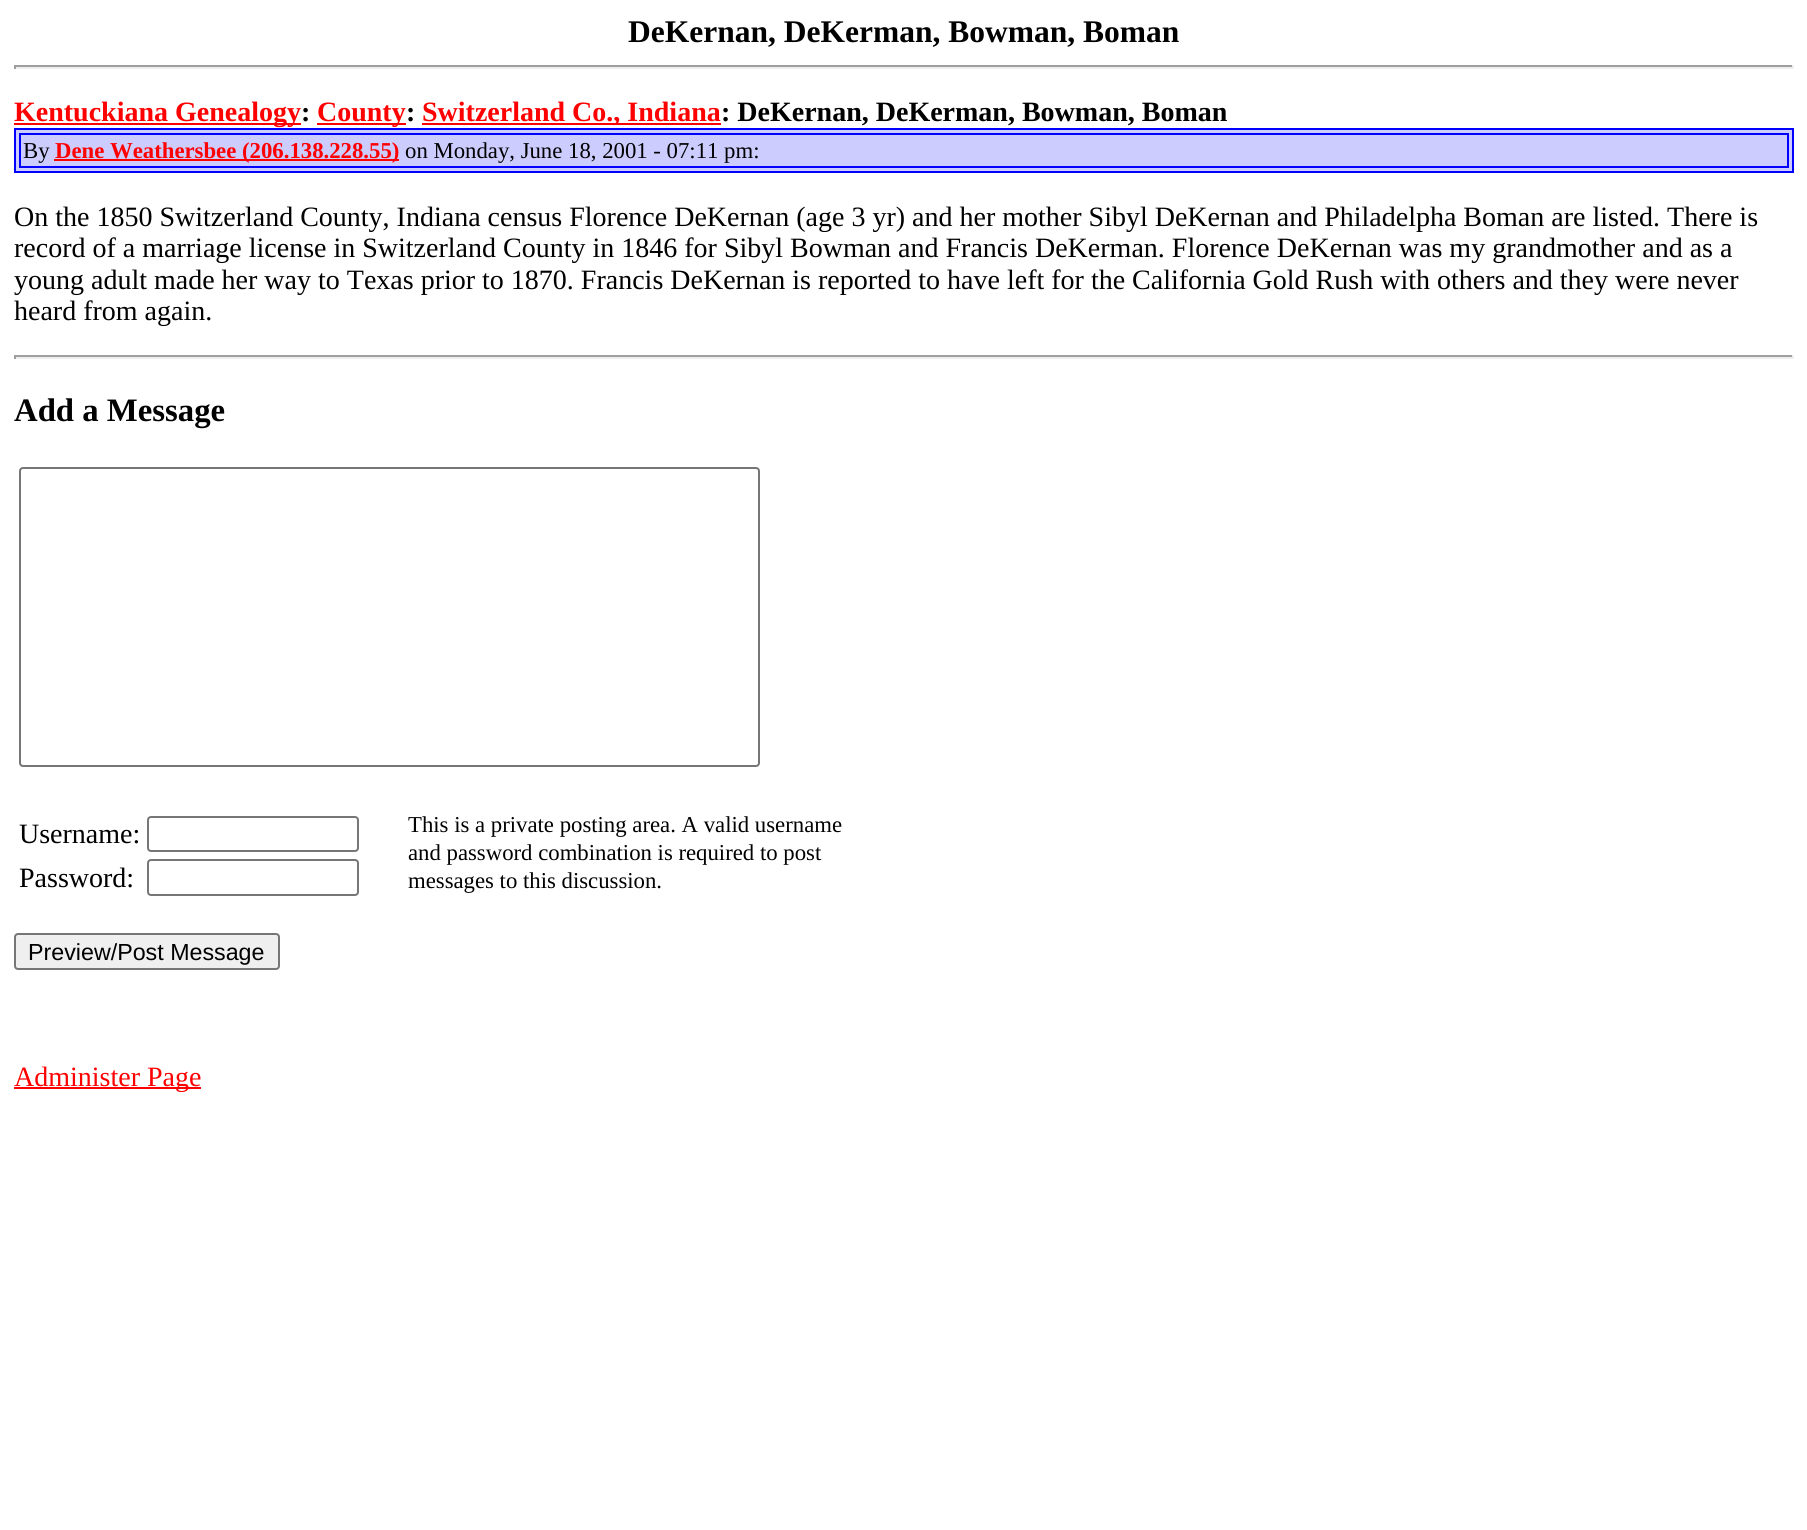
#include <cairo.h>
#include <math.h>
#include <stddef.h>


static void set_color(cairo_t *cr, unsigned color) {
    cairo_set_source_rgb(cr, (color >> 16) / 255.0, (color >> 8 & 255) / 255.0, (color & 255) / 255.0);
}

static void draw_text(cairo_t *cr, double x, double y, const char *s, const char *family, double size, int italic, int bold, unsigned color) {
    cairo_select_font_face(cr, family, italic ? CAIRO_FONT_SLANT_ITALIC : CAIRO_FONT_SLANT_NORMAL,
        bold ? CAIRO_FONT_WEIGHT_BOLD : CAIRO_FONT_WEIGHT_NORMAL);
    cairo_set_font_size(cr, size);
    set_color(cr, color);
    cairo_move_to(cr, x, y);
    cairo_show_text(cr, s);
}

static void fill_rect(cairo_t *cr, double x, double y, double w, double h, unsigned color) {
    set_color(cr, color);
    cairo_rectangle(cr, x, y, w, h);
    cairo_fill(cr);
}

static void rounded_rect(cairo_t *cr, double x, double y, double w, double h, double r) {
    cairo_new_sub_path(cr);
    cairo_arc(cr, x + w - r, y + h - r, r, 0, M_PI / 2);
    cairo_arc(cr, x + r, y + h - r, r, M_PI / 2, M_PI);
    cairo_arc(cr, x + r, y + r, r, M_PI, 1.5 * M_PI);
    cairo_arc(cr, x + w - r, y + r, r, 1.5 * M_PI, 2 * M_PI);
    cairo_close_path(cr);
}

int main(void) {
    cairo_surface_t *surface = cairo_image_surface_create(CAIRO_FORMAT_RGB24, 1807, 1530);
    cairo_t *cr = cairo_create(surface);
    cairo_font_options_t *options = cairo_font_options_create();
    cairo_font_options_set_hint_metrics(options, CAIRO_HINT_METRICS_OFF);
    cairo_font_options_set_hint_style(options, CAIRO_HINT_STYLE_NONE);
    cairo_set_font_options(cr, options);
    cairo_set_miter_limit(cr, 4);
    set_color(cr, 0xFFFFFF);
    cairo_paint(cr);
    draw_text(cr, 628, 42, "DeKernan, DeKerman, Bowman, Boman", "Liberation Serif", 31.5, 0, 1, 0x000000);
    fill_rect(cr, 14, 65, 1780, 2, 0x9F9F9F);
    fill_rect(cr, 1792, 65, 2, 4, 0xEEEEEE);
    fill_rect(cr, 14, 67, 1780, 2, 0xEEEEEE);
    fill_rect(cr, 14, 65, 2, 4, 0x9F9F9F);
    fill_rect(cr, 14, 123, 287, 2, 0xFF0000);
    draw_text(cr, 14, 121, "Kentuckiana Genealogy", "Liberation Serif", 28, 0, 1, 0xFF0000);
    draw_text(cr, 301, 121, ":", "Liberation Serif", 28, 0, 1, 0x000000);
    fill_rect(cr, 317, 123, 89, 2, 0xFF0000);
    draw_text(cr, 317, 121, "County", "Liberation Serif", 28, 0, 1, 0xFF0000);
    draw_text(cr, 406, 121, ":", "Liberation Serif", 28, 0, 1, 0x000000);
    fill_rect(cr, 422, 123, 299, 2, 0xFF0000);
    draw_text(cr, 422, 121, "Switzerland Co., Indiana", "Liberation Serif", 28, 0, 1, 0xFF0000);
    draw_text(cr, 721, 121, ": DeKernan, DeKerman, Bowman, Boman", "Liberation Serif", 28, 0, 1, 0x000000);
    set_color(cr, 0xCCCCFF);
    cairo_rectangle(cr, 15, 129, 1778, 43);
    cairo_fill_preserve(cr);
    set_color(cr, 0x0000FF);
    cairo_stroke(cr);
    cairo_rectangle(cr, 20, 134, 1768, 33);
    cairo_stroke(cr);
    draw_text(cr, 23, 158, "By", "Liberation Serif", 22.75, 0, 0, 0x000000);
    fill_rect(cr, 54, 159, 345, 2, 0xFF0000);
    draw_text(cr, 55, 158, "Dene Weathersbee (206.138.228.55)", "Liberation Serif", 22.75, 0, 1, 0xFF0000);
    draw_text(cr, 405, 158, "on Monday, June 18, 2001 - 07:11 pm:", "Liberation Serif", 22.75, 0, 0, 0x000000);
    draw_text(cr, 14, 226, "On the 1850 Switzerland County, Indiana census Florence DeKernan (age 3 yr) and her mother Sibyl DeKernan and Philadelpha Boman are listed. There is", "Liberation Serif", 28, 0, 0, 0x000000);
    draw_text(cr, 14, 257, "record of a marriage license in Switzerland County in 1846 for Sibyl Bowman and Francis DeKerman. Florence DeKernan was my grandmother and as a", "Liberation Serif", 28, 0, 0, 0x000000);
    draw_text(cr, 14, 289, "young adult made her way to Texas prior to 1870. Francis DeKernan is reported to have left for the California Gold Rush with others and they were never", "Liberation Serif", 28, 0, 0, 0x000000);
    draw_text(cr, 14, 320, "heard from again.", "Liberation Serif", 28, 0, 0, 0x000000);
    fill_rect(cr, 14, 355, 1780, 2, 0x9F9F9F);
    fill_rect(cr, 1792, 355, 2, 4, 0xEEEEEE);
    fill_rect(cr, 14, 357, 1780, 2, 0xEEEEEE);
    fill_rect(cr, 14, 355, 2, 4, 0x9F9F9F);
    draw_text(cr, 14, 421, "Add a Message", "Liberation Serif", 32.75, 0, 1, 0x000000);
    rounded_rect(cr, 20, 468, 739, 298, 3);
    set_color(cr, 0x767676);
    cairo_stroke(cr);
    draw_text(cr, 19, 843, "Username:", "Liberation Serif", 28, 0, 0, 0x000000);
    rounded_rect(cr, 148, 817, 210, 34, 3);
    set_color(cr, 0x767676);
    cairo_stroke(cr);
    draw_text(cr, 408, 832, "This is a private posting area. A valid username", "Liberation Serif", 22.75, 0, 0, 0x000000);
    draw_text(cr, 408, 860, "and password combination is required to post", "Liberation Serif", 22.75, 0, 0, 0x000000);
    draw_text(cr, 408, 888, "messages to this discussion.", "Liberation Serif", 22.75, 0, 0, 0x000000);
    draw_text(cr, 19, 887, "Password:", "Liberation Serif", 28, 0, 0, 0x000000);
    rounded_rect(cr, 148, 860, 210, 35, 3);
    set_color(cr, 0x767676);
    cairo_stroke(cr);
    set_color(cr, 0xEFEFEF);
    rounded_rect(cr, 15, 934, 264, 35, 3);
    cairo_fill_preserve(cr);
    set_color(cr, 0x767676);
    cairo_stroke(cr);
    draw_text(cr, 28, 960, "Preview/Post Message", "Liberation Sans", 23.25, 0, 0, 0x000000);
    fill_rect(cr, 14, 1087, 187, 2, 0xFF0000);
    draw_text(cr, 14, 1086, "Administer Page", "Liberation Serif", 28, 0, 0, 0xFF0000);
    cairo_surface_write_to_png(surface, "output.png");
    cairo_font_options_destroy(options);
    cairo_destroy(cr);
    cairo_surface_destroy(surface);
    return 0;
}
